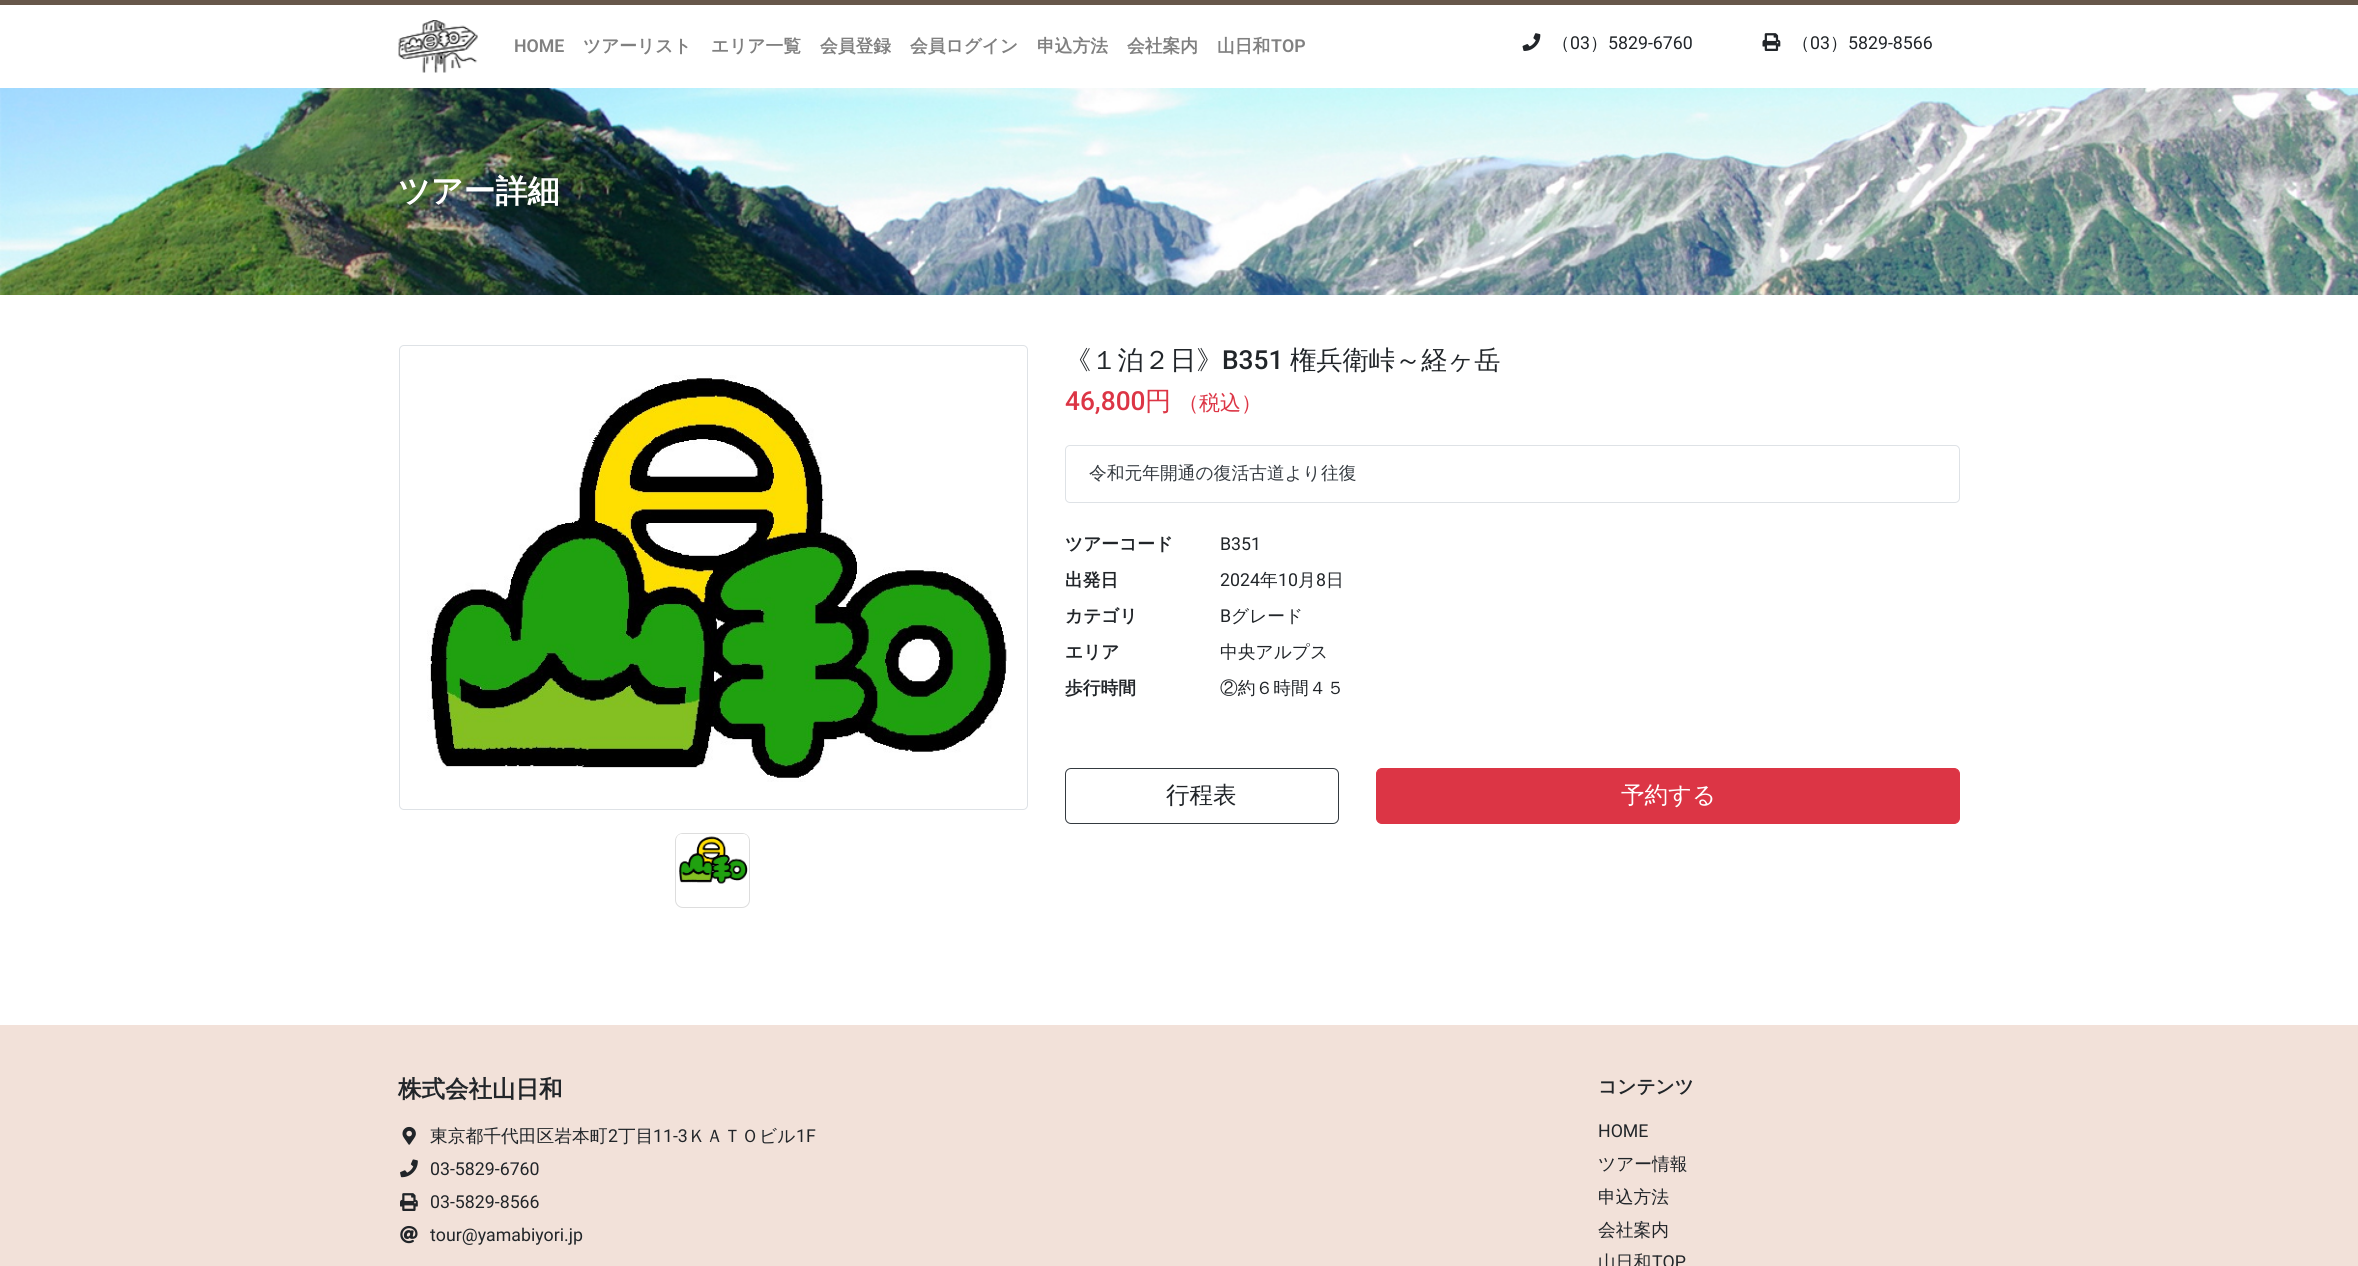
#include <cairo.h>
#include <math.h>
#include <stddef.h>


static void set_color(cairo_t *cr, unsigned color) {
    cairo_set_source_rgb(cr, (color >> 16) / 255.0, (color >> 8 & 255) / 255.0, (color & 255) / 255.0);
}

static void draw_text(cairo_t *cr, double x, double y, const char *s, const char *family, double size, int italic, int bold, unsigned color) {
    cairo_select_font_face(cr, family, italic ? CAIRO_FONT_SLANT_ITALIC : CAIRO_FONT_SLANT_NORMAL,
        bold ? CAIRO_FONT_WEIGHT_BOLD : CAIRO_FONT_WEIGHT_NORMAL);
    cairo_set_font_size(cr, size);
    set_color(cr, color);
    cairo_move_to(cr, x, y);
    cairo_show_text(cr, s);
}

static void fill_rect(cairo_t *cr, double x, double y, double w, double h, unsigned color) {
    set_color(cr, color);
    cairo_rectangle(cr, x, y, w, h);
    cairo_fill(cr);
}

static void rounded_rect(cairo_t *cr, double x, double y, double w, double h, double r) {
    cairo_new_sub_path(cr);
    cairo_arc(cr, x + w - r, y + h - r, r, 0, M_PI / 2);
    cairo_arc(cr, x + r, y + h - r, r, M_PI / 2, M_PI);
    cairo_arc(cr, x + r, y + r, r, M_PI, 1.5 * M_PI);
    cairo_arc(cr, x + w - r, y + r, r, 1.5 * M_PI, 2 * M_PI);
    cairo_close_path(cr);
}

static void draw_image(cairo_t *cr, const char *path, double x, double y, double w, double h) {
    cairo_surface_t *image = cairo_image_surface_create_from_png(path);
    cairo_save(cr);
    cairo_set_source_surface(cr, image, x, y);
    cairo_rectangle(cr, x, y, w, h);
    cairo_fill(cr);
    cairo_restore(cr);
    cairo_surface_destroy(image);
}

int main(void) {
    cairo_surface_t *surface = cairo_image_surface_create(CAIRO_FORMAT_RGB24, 2358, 1266);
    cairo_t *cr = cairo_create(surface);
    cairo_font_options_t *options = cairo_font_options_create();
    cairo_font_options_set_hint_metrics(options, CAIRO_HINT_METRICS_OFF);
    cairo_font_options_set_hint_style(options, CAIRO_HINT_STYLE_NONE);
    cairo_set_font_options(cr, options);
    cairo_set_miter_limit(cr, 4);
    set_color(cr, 0xFFFFFF);
    cairo_paint(cr);
    fill_rect(cr, 0, 0, 2358, 5, 0x67574A);
    draw_image(cr, "assets/img1.png", 398, 20, 80, 53);
    draw_text(cr, 514, 52, "HOME", "Roboto SemiBold", 17.75, 0, 0, 0x808080);
    draw_text(cr, 583, 52, "ツアーリスト", "WenQuanYi Zen Hei", 17.75, 0, 1, 0x808080);
    draw_text(cr, 711, 52, "エリア一覧", "WenQuanYi Zen Hei", 17.75, 0, 1, 0x808080);
    draw_text(cr, 820, 52, "会員登録", "WenQuanYi Zen Hei", 17.75, 0, 1, 0x808080);
    draw_text(cr, 910, 52, "会員ログイン", "WenQuanYi Zen Hei", 17.75, 0, 1, 0x808080);
    draw_text(cr, 1037, 52, "申込方法", "WenQuanYi Zen Hei", 17.75, 0, 1, 0x808080);
    draw_text(cr, 1127, 52, "会社案内", "WenQuanYi Zen Hei", 17.75, 0, 1, 0x808080);
    draw_text(cr, 1217, 52, "山日和", "WenQuanYi Zen Hei", 17.75, 0, 1, 0x808080);
    draw_text(cr, 1271, 52, "TOP", "Roboto SemiBold", 17.75, 0, 0, 0x808080);
    draw_image(cr, "assets/img2.png", 1522, 33, 19, 18);
    draw_text(cr, 1552, 49, "（", "WenQuanYi Zen Hei Medium", 17.75, 0, 0, 0x212529);
    draw_text(cr, 1570, 49, "03", "Roboto", 17.75, 0, 0, 0x212529);
    draw_text(cr, 1590, 49, "）", "WenQuanYi Zen Hei Medium", 17.75, 0, 0, 0x212529);
    draw_text(cr, 1608, 49, "5829-6760", "Roboto", 17.75, 0, 0, 0x212529);
    draw_image(cr, "assets/img3.png", 1762, 33, 19, 18);
    draw_text(cr, 1792, 49, "（", "WenQuanYi Zen Hei Medium", 17.75, 0, 0, 0x212529);
    draw_text(cr, 1810, 49, "03", "Roboto", 17.75, 0, 0, 0x212529);
    draw_text(cr, 1830, 49, "）", "WenQuanYi Zen Hei Medium", 17.75, 0, 0, 0x212529);
    draw_text(cr, 1848, 49, "5829-8566", "Roboto", 17.75, 0, 0, 0x212529);
    draw_image(cr, "assets/img4.png", 0, 88, 2358, 207);
    draw_text(cr, 398, 202, "ツアー詳細", "WenQuanYi Zen Hei", 32, 0, 1, 0xFFFFFF);
    rounded_rect(cr, 399.5, 345.5, 628, 464, 4.5);
    set_color(cr, 0xDEE2E6);
    cairo_set_line_width(cr, 1);
    cairo_stroke(cr);
    draw_image(cr, "assets/img5.png", 427, 375, 580, 407);
    rounded_rect(cr, 675.5, 833.5, 74, 74, 7.5);
    set_color(cr, 0xDDDDDD);
    cairo_stroke(cr);
    draw_image(cr, "assets/img6.png", 676, 834, 73, 50);
    draw_text(cr, 1065, 369, "《１泊２日》", "WenQuanYi Zen Hei Medium", 26.25, 0, 0, 0x212529);
    draw_text(cr, 1222, 369, "B351", "Roboto Medium", 26.25, 0, 0, 0x212529);
    draw_text(cr, 1290, 369, "権兵衛峠～経ヶ岳", "WenQuanYi Zen Hei Medium", 26.25, 0, 0, 0x212529);
    draw_text(cr, 1065, 410, "46,800", "Roboto Medium", 26.25, 0, 0, 0xDC3545);
    draw_text(cr, 1145, 410, "円", "WenQuanYi Zen Hei Medium", 26.25, 0, 0, 0xDC3545);
    draw_text(cr, 1178, 410, "（税込）", "WenQuanYi Zen Hei Medium", 21, 0, 0, 0xDC3545);
    rounded_rect(cr, 1065.5, 445.5, 894, 57, 4.5);
    set_color(cr, 0xDEE2E6);
    cairo_stroke(cr);
    draw_text(cr, 1089, 479, "令和元年開通の復活古道より往復", "WenQuanYi Zen Hei Medium", 17.75, 0, 0, 0x343A40);
    draw_text(cr, 1065, 550, "ツアーコード", "WenQuanYi Zen Hei", 17.75, 0, 1, 0x212529);
    draw_text(cr, 1220, 550, "B351", "Roboto", 17.75, 0, 0, 0x212529);
    draw_text(cr, 1065, 586, "出発日", "WenQuanYi Zen Hei", 17.75, 0, 1, 0x212529);
    draw_text(cr, 1220, 586, "2024", "Roboto", 17.75, 0, 0, 0x212529);
    draw_text(cr, 1260, 586, "年", "WenQuanYi Zen Hei Medium", 17.75, 0, 0, 0x212529);
    draw_text(cr, 1278, 586, "10", "Roboto", 17.75, 0, 0, 0x212529);
    draw_text(cr, 1298, 586, "月", "WenQuanYi Zen Hei Medium", 17.75, 0, 0, 0x212529);
    draw_text(cr, 1316, 586, "8", "Roboto", 17.75, 0, 0, 0x212529);
    draw_text(cr, 1326, 586, "日", "WenQuanYi Zen Hei Medium", 17.75, 0, 0, 0x212529);
    draw_text(cr, 1065, 622, "カテゴリ", "WenQuanYi Zen Hei", 17.75, 0, 1, 0x212529);
    draw_text(cr, 1220, 622, "B", "Roboto", 17.75, 0, 0, 0x212529);
    draw_text(cr, 1231, 622, "グレード", "WenQuanYi Zen Hei Medium", 17.75, 0, 0, 0x212529);
    draw_text(cr, 1065, 658, "エリア", "WenQuanYi Zen Hei", 17.75, 0, 1, 0x212529);
    draw_text(cr, 1220, 658, "中央アルプス", "WenQuanYi Zen Hei Medium", 17.75, 0, 0, 0x212529);
    draw_text(cr, 1065, 694, "歩行時間", "WenQuanYi Zen Hei", 17.75, 0, 1, 0x212529);
    draw_text(cr, 1220, 694, "②約６時間４５", "WenQuanYi Zen Hei Medium", 17.75, 0, 0, 0x212529);
    rounded_rect(cr, 1065.5, 768.5, 273, 55, 5.5);
    set_color(cr, 0x343A40);
    cairo_stroke(cr);
    draw_text(cr, 1166, 803, "行程表", "WenQuanYi Zen Hei Medium", 23.5, 0, 0, 0x212529);
    set_color(cr, 0xDC3545);
    rounded_rect(cr, 1376.5, 768.5, 583, 55, 5.5);
    cairo_fill_preserve(cr);
    cairo_stroke(cr);
    draw_text(cr, 1621, 803, "予約する", "WenQuanYi Zen Hei Medium", 23.5, 0, 0, 0xFFFFFF);
    fill_rect(cr, 0, 1025, 2358, 241, 0xF2E1D9);
    draw_text(cr, 398, 1097, "株式会社山日和", "WenQuanYi Zen Hei", 23.5, 0, 1, 0x212529);
    draw_image(cr, "assets/img7.png", 402, 1126, 14, 19);
    draw_text(cr, 430, 1142, "東京都千代田区岩本町", "WenQuanYi Zen Hei Medium", 17.75, 0, 0, 0x212529);
    draw_text(cr, 608, 1142, "2", "Roboto", 17.75, 0, 0, 0x212529);
    draw_text(cr, 618, 1142, "丁目", "WenQuanYi Zen Hei Medium", 17.75, 0, 0, 0x212529);
    draw_text(cr, 653, 1142, "11-3", "Roboto", 17.75, 0, 0, 0x212529);
    draw_text(cr, 688, 1142, "ＫＡＴＯビル", "WenQuanYi Zen Hei Medium", 17.75, 0, 0, 0x212529);
    draw_text(cr, 796, 1142, "1F", "Roboto", 17.75, 0, 0, 0x212529);
    draw_image(cr, "assets/img8.png", 400, 1159, 18, 19);
    draw_text(cr, 430, 1175, "03-5829-6760", "Roboto", 17.75, 0, 0, 0x212529);
    draw_image(cr, "assets/img9.png", 400, 1193, 18, 18);
    draw_text(cr, 430, 1208, "03-5829-8566", "Roboto", 17.75, 0, 0, 0x212529);
    draw_image(cr, "assets/img10.png", 400, 1225, 18, 19);
    draw_text(cr, 430, 1241, "tour@yamabiyori.jp", "Roboto", 17.75, 0, 0, 0x212529);
    draw_text(cr, 1598, 1093, "コンテンツ", "WenQuanYi Zen Hei", 18.75, 0, 1, 0x212529);
    draw_text(cr, 1598, 1137, "HOME", "Roboto", 17.75, 0, 0, 0x212529);
    draw_text(cr, 1598, 1170, "ツアー情報", "WenQuanYi Zen Hei Medium", 17.75, 0, 0, 0x212529);
    draw_text(cr, 1598, 1203, "申込方法", "WenQuanYi Zen Hei Medium", 17.75, 0, 0, 0x212529);
    draw_text(cr, 1598, 1236, "会社案内", "WenQuanYi Zen Hei Medium", 17.75, 0, 0, 0x212529);
    draw_text(cr, 1598, 1268, "山日和", "WenQuanYi Zen Hei Medium", 17.75, 0, 0, 0x212529);
    draw_text(cr, 1652, 1268, "TOP", "Roboto", 17.75, 0, 0, 0x212529);
    cairo_surface_write_to_png(surface, "output.png");
    cairo_font_options_destroy(options);
    cairo_destroy(cr);
    cairo_surface_destroy(surface);
    return 0;
}
